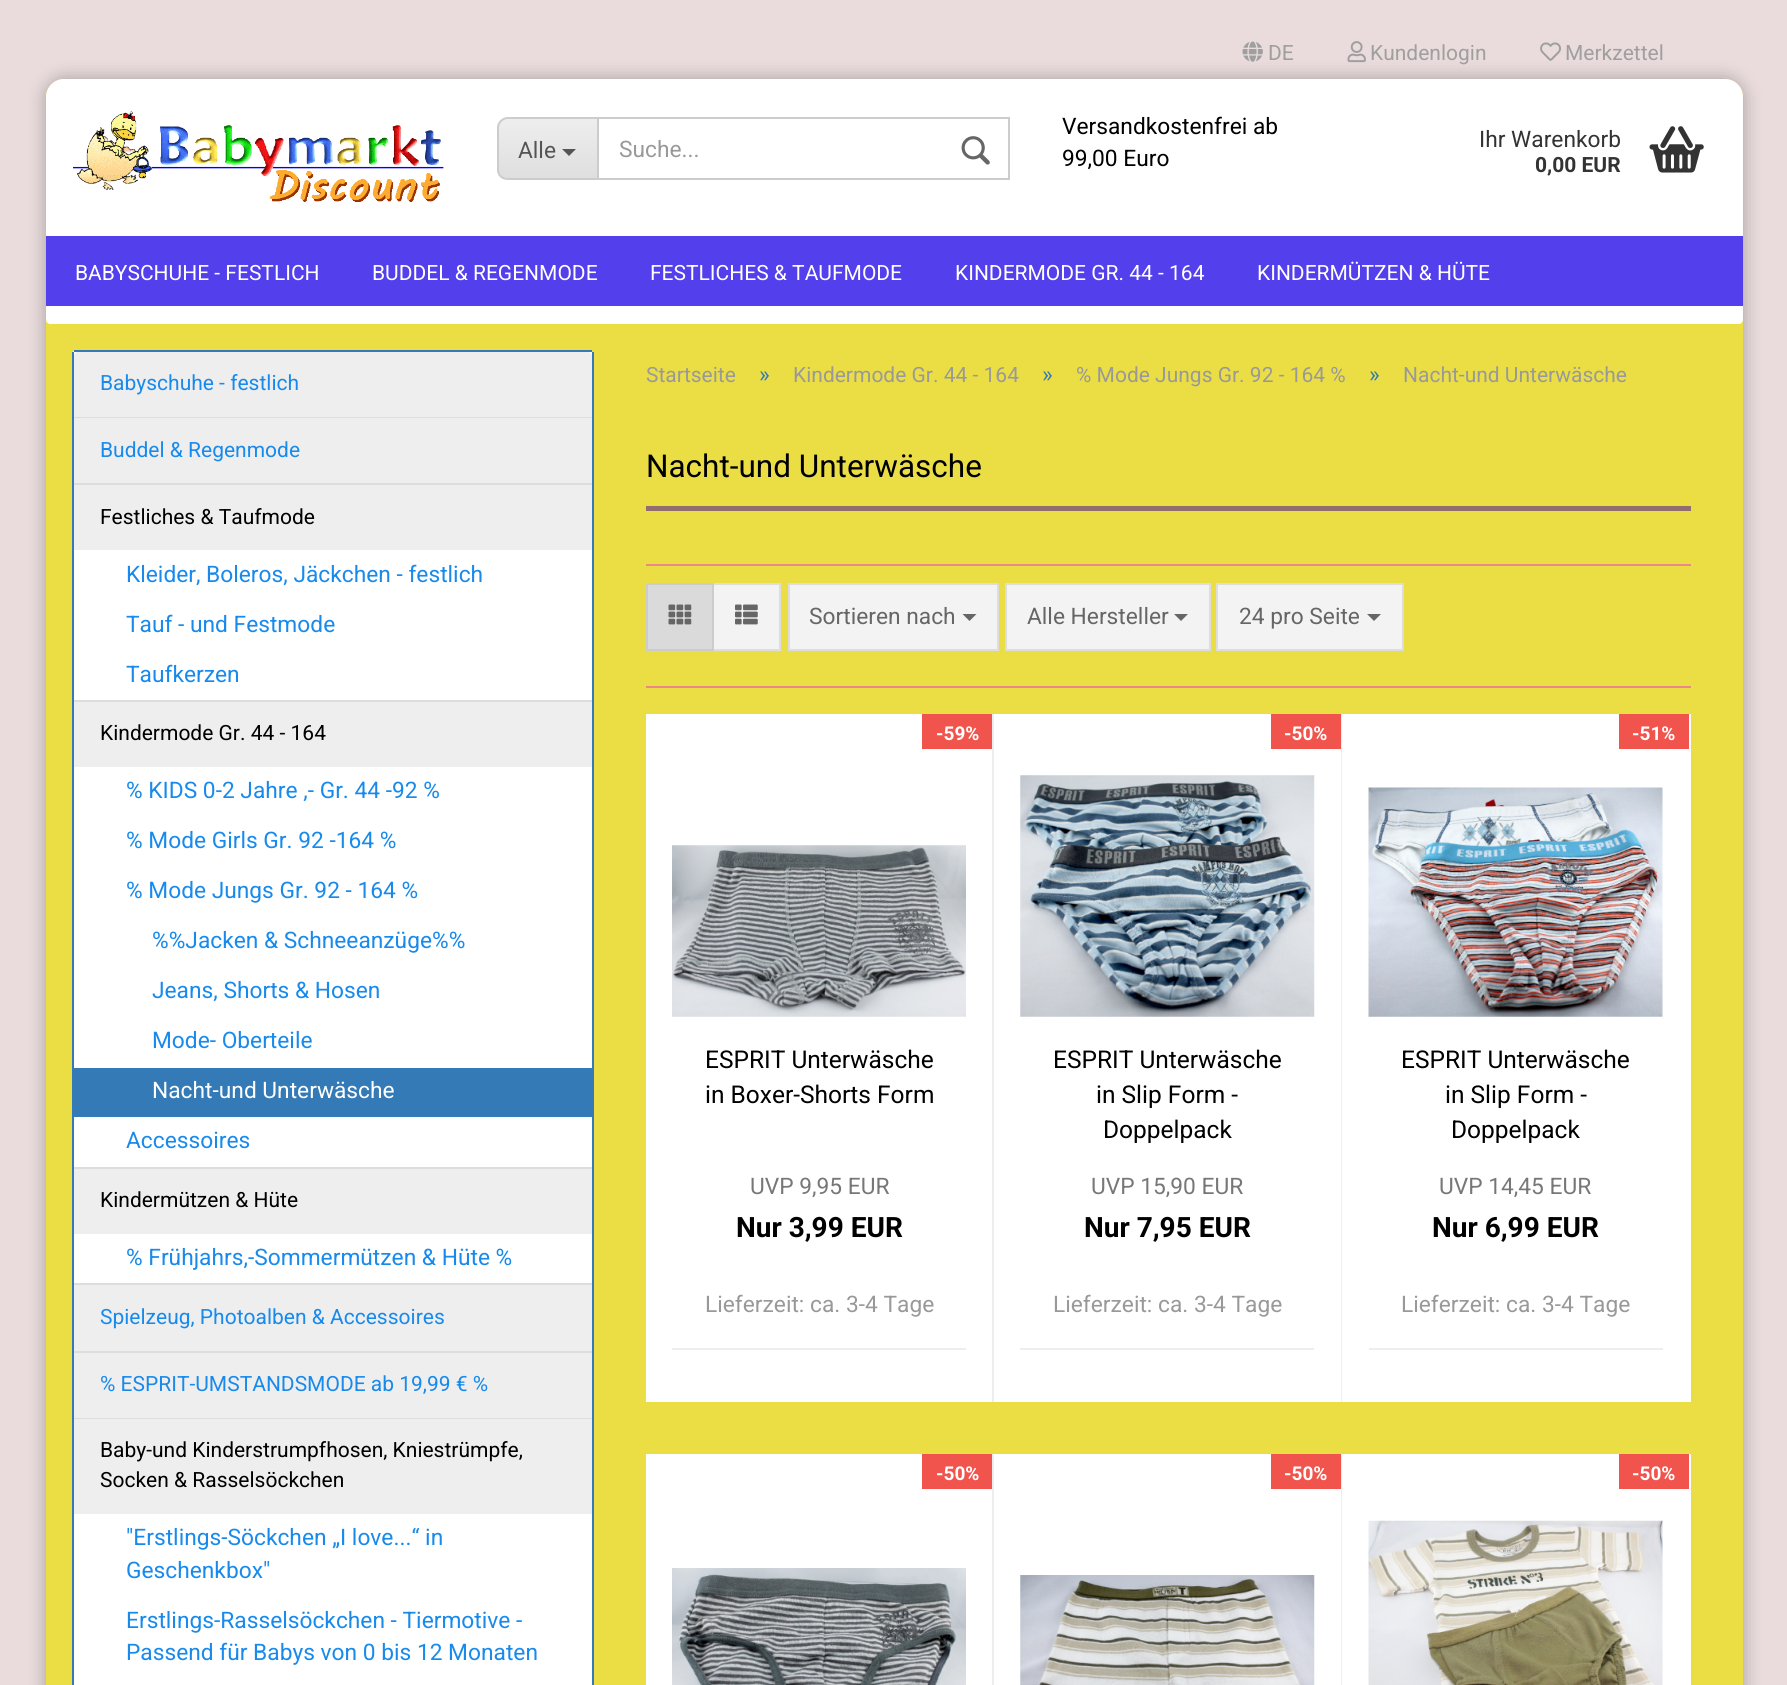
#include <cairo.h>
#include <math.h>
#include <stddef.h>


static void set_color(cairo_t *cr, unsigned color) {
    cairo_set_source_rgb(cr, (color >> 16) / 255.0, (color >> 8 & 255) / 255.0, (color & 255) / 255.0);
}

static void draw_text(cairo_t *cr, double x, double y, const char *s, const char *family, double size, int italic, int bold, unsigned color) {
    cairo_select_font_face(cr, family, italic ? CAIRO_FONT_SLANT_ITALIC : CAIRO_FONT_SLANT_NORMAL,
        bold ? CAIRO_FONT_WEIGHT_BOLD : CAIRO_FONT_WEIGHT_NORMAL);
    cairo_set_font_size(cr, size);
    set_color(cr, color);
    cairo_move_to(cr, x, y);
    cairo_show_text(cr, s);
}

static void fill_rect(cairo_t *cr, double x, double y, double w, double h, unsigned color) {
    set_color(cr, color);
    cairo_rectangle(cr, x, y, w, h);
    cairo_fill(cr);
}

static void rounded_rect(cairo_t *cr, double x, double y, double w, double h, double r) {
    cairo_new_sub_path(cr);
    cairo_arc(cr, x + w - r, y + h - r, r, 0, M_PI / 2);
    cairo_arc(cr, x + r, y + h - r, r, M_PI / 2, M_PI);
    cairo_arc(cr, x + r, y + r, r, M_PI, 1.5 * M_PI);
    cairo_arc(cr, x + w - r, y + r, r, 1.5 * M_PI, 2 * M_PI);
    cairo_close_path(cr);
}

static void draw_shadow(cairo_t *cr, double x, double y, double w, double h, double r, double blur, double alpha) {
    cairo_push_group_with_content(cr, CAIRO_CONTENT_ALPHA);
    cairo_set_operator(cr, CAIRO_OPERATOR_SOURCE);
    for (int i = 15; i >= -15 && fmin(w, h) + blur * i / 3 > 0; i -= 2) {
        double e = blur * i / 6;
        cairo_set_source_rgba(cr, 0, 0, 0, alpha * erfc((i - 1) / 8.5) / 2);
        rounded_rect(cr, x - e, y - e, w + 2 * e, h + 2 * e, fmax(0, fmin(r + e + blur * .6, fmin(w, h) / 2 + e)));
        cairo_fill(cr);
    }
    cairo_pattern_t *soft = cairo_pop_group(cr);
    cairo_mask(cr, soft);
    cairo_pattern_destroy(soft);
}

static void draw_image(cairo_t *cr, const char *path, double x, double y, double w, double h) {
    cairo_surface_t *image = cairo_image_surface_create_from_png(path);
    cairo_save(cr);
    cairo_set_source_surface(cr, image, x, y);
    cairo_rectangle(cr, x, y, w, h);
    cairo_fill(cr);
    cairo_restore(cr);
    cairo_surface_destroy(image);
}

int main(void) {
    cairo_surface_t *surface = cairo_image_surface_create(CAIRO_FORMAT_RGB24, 1787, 1685);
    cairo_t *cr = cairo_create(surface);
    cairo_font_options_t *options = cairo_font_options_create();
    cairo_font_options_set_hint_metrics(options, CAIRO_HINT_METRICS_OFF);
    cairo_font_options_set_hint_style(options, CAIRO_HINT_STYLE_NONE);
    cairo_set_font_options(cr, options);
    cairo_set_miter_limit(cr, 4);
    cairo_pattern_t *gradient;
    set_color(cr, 0xEADCDC);
    cairo_paint(cr);
    set_color(cr, 0x000000);
    draw_shadow(cr, 46, 79, 1697, 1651, 18, 9, 0.3);
    set_color(cr, 0xEBDE45);
    rounded_rect(cr, 46, 79, 1697, 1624, 18);
    cairo_fill(cr);
    set_color(cr, 0xFFFFFF);
    cairo_new_path(cr);
    cairo_move_to(cr, 64, 79);
    cairo_line_to(cr, 1725, 79);
    cairo_curve_to(cr, 1735, 79, 1743, 87, 1743, 97);
    cairo_line_to(cr, 1743, 320);
    cairo_curve_to(cr, 1743, 322, 1741, 324, 1739, 324);
    cairo_line_to(cr, 50, 324);
    cairo_curve_to(cr, 48, 324, 46, 322, 46, 320);
    cairo_line_to(cr, 46, 97);
    cairo_curve_to(cr, 46, 87, 54, 79, 64, 79);
    cairo_close_path(cr);
    cairo_fill(cr);
    draw_image(cr, "assets/img1.png", 1242, 41, 21, 21);
    draw_text(cr, 1268, 60, "DE", "Roboto", 21, 0, 0, 0x9F9F9F);
    draw_image(cr, "assets/img2.png", 1347, 41, 19, 22);
    draw_text(cr, 1370, 60, "Kundenlogin", "Roboto", 21, 0, 0, 0x9F9F9F);
    draw_image(cr, "assets/img3.png", 1540, 42, 21, 19);
    draw_text(cr, 1565, 60, "Merkzettel", "Roboto", 21, 0, 0, 0x9F9F9F);
    draw_image(cr, "assets/img4.png", 73, 111, 371, 91);
    cairo_save(cr);
    cairo_new_path(cr);
    cairo_move_to(cr, 508, 117);
    cairo_line_to(cr, 597, 117);
    cairo_line_to(cr, 597, 180);
    cairo_line_to(cr, 508, 180);
    cairo_curve_to(cr, 502, 180, 497, 175, 497, 169);
    cairo_line_to(cr, 497, 128);
    cairo_curve_to(cr, 497, 122, 502, 117, 508, 117);
    cairo_close_path(cr);
    cairo_clip(cr);
    gradient = cairo_pattern_create_linear(548, 119, 548, 179);
    cairo_pattern_add_color_stop_rgba(gradient, 0, 0.933, 0.933, 0.933, 1);
    cairo_pattern_add_color_stop_rgba(gradient, 1, 0.871, 0.871, 0.871, 1);
    cairo_set_source(cr, gradient);
    cairo_pattern_destroy(gradient);
    cairo_rectangle(cr, 497, 119, 100, 60);
    cairo_fill(cr);
    cairo_restore(cr);
    set_color(cr, 0xCCCCCC);
    cairo_set_fill_rule(cr, CAIRO_FILL_RULE_EVEN_ODD);
    cairo_new_path(cr);
    cairo_move_to(cr, 508, 117);
    cairo_line_to(cr, 597, 117);
    cairo_line_to(cr, 597, 180);
    cairo_line_to(cr, 508, 180);
    cairo_curve_to(cr, 502, 180, 497, 176, 497, 170);
    cairo_line_to(cr, 497, 128);
    cairo_curve_to(cr, 497, 122, 502, 117, 508, 117);
    cairo_close_path(cr);
    cairo_move_to(cr, 508, 119);
    cairo_line_to(cr, 597, 119);
    cairo_line_to(cr, 597, 178);
    cairo_line_to(cr, 508, 178);
    cairo_curve_to(cr, 503, 178, 499, 175, 499, 170);
    cairo_line_to(cr, 499, 128);
    cairo_curve_to(cr, 499, 123, 503, 119, 508, 119);
    cairo_close_path(cr);
    cairo_fill(cr);
    draw_text(cr, 518, 158, "Alle", "Roboto", 22.75, 0, 0, 0x555555);
    cairo_set_fill_rule(cr, CAIRO_FILL_RULE_WINDING);
    cairo_new_path(cr);
    cairo_move_to(cr, 562, 149);
    cairo_line_to(cr, 576, 149);
    cairo_line_to(cr, 569, 156);
    cairo_close_path(cr);
    cairo_fill(cr);
    cairo_rectangle(cr, 598, 118, 411, 61);
    set_color(cr, 0xCCCCCC);
    cairo_stroke(cr);
    draw_text(cr, 619, 157, "Suche...", "Roboto", 22.75, 0, 0, 0x999999);
    draw_image(cr, "assets/img5.png", 961, 136, 29, 29);
    draw_text(cr, 1062, 134, "Versandkostenfrei ab", "Roboto", 22.75, 0, 0, 0x000000);
    draw_text(cr, 1062, 166, "99,00 Euro", "Roboto", 22.75, 0, 0, 0x000000);
    draw_text(cr, 1479, 147, "Ihr Warenkorb", "Roboto", 22.75, 0, 0, 0x333333);
    draw_text(cr, 1535, 172, "0,00 EUR", "Roboto", 21, 0, 1, 0x333333);
    draw_image(cr, "assets/img6.png", 1649, 126, 55, 47);
    fill_rect(cr, 46, 236, 1697, 70, 0x533FEC);
    draw_text(cr, 75, 280, "BABYSCHUHE - FESTLICH", "Roboto", 21, 0, 0, 0xFFFFFF);
    draw_text(cr, 372, 280, "BUDDEL & REGENMODE", "Roboto", 21, 0, 0, 0xFFFFFF);
    draw_text(cr, 650, 280, "FESTLICHES & TAUFMODE", "Roboto", 21, 0, 0, 0xFFFFFF);
    draw_text(cr, 955, 280, "KINDERMODE GR. 44 - 164", "Roboto", 21, 0, 0, 0xFFFFFF);
    draw_text(cr, 1257, 280, "KINDERMÜTZEN & HÜTE", "Roboto", 21, 0, 0, 0xFFFFFF);
    rounded_rect(cr, 72, 350, 521, 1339, 4);
    cairo_fill(cr);
    fill_rect(cr, 74, 350, 518, 2, 0x337AB7);
    fill_rect(cr, 592, 352, 2, 1333, 0x337AB7);
    fill_rect(cr, 72, 352, 2, 1333, 0x337AB7);
    fill_rect(cr, 74, 417, 518, 1, 0xDDDDDD);
    set_color(cr, 0xEEEEEE);
    cairo_new_path(cr);
    cairo_move_to(cr, 78, 352);
    cairo_line_to(cr, 588, 352);
    cairo_curve_to(cr, 590, 352, 592, 354, 592, 356);
    cairo_line_to(cr, 592, 417);
    cairo_line_to(cr, 74, 417);
    cairo_line_to(cr, 74, 356);
    cairo_curve_to(cr, 74, 354, 76, 352, 78, 352);
    cairo_close_path(cr);
    cairo_fill(cr);
    draw_text(cr, 100, 390, "Babyschuhe - festlich", "Roboto", 21, 0, 0, 0x178AEC);
    fill_rect(cr, 74, 483, 518, 2, 0xDDDDDD);
    fill_rect(cr, 74, 418, 518, 65, 0xEEEEEE);
    draw_text(cr, 100, 457, "Buddel & Regenmode", "Roboto", 21, 0, 0, 0x178AEC);
    fill_rect(cr, 74, 700, 518, 2, 0xDDDDDD);
    fill_rect(cr, 74, 485, 518, 65, 0xEEEEEE);
    draw_text(cr, 100, 524, "Festliches & Taufmode", "Roboto", 21, 0, 0, 0x000000);
    draw_text(cr, 126, 582, "Kleider, Boleros, Jäckchen - festlich", "Roboto", 22.75, 0, 0, 0x178AEC);
    draw_text(cr, 126, 632, "Tauf - und Festmode", "Roboto", 22.75, 0, 0, 0x178AEC);
    draw_text(cr, 126, 682, "Taufkerzen", "Roboto", 22.75, 0, 0, 0x178AEC);
    fill_rect(cr, 74, 1167, 518, 2, 0xDDDDDD);
    fill_rect(cr, 74, 702, 518, 65, 0xEEEEEE);
    draw_text(cr, 100, 740, "Kindermode Gr. 44 - 164", "Roboto", 21, 0, 0, 0x000000);
    draw_text(cr, 126, 798, "% KIDS 0-2 Jahre ,- Gr. 44 -92 %", "Roboto", 22.75, 0, 0, 0x178AEC);
    draw_text(cr, 126, 848, "% Mode Girls Gr. 92 -164 %", "Roboto", 22.75, 0, 0, 0x178AEC);
    draw_text(cr, 126, 898, "% Mode Jungs Gr. 92 - 164 %", "Roboto", 22.75, 0, 0, 0x178AEC);
    draw_text(cr, 152, 948, "%%Jacken & Schneeanzüge%%", "Roboto", 22.75, 0, 0, 0x178AEC);
    draw_text(cr, 152, 998, "Jeans, Shorts & Hosen", "Roboto", 22.75, 0, 0, 0x178AEC);
    draw_text(cr, 152, 1048, "Mode- Oberteile", "Roboto", 22.75, 0, 0, 0x178AEC);
    fill_rect(cr, 74, 1068, 518, 49, 0x337AB7);
    draw_text(cr, 152, 1098, "Nacht-und Unterwäsche", "Roboto", 22.75, 0, 0, 0xFFFFFF);
    draw_text(cr, 126, 1148, "Accessoires", "Roboto", 22.75, 0, 0, 0x178AEC);
    fill_rect(cr, 74, 1283, 518, 2, 0xDDDDDD);
    fill_rect(cr, 74, 1169, 518, 65, 0xEEEEEE);
    draw_text(cr, 100, 1207, "Kindermützen & Hüte", "Roboto", 21, 0, 0, 0x000000);
    draw_text(cr, 126, 1265, "% Frühjahrs,-Sommermützen & Hüte %", "Roboto", 22.75, 0, 0, 0x178AEC);
    fill_rect(cr, 74, 1351, 518, 2, 0xDDDDDD);
    fill_rect(cr, 74, 1285, 518, 66, 0xEEEEEE);
    draw_text(cr, 100, 1324, "Spielzeug, Photoalben & Accessoires", "Roboto", 21, 0, 0, 0x178AEC);
    fill_rect(cr, 74, 1418, 518, 1, 0xDDDDDD);
    fill_rect(cr, 74, 1353, 518, 65, 0xEEEEEE);
    draw_text(cr, 100, 1391, "% ESPRIT-UMSTANDSMODE ab 19,99 € %", "Roboto", 21, 0, 0, 0x178AEC);
    fill_rect(cr, 74, 1419, 518, 95, 0xEEEEEE);
    draw_text(cr, 100, 1457, "Baby-und Kinderstrumpfhosen, Kniestrümpfe,", "Roboto", 21, 0, 0, 0x000000);
    draw_text(cr, 100, 1487, "Socken & Rasselsöckchen", "Roboto", 21, 0, 0, 0x000000);
    draw_text(cr, 126, 1545, "\"Erstlings-Söckchen „I love...“ in", "Roboto", 22.75, 0, 0, 0x178AEC);
    draw_text(cr, 126, 1578, "Geschenkbox\"", "Roboto", 22.75, 0, 0, 0x178AEC);
    draw_text(cr, 126, 1628, "Erstlings-Rasselsöckchen - Tiermotive -", "Roboto", 22.75, 0, 0, 0x178AEC);
    draw_text(cr, 126, 1660, "Passend für Babys von 0 bis 12 Monaten", "Roboto", 22.75, 0, 0, 0x178AEC);
    draw_text(cr, 646, 382, "Startseite", "Roboto", 21, 0, 0, 0x999999);
    draw_text(cr, 759, 382, "»", "Roboto", 22.75, 0, 0, 0x337AB7);
    draw_text(cr, 793, 382, "Kindermode Gr. 44 - 164", "Roboto", 21, 0, 0, 0x999999);
    draw_text(cr, 1042, 382, "»", "Roboto", 22.75, 0, 0, 0x337AB7);
    draw_text(cr, 1076, 382, "% Mode Jungs Gr. 92 - 164 %", "Roboto", 21, 0, 0, 0x999999);
    draw_text(cr, 1369, 382, "»", "Roboto", 22.75, 0, 0, 0x337AB7);
    draw_text(cr, 1403, 382, "Nacht-und Unterwäsche", "Roboto", 21, 0, 0, 0x999999);
    fill_rect(cr, 646, 506, 1045, 5, 0x926D6D);
    draw_text(cr, 646, 477, "Nacht-und Unterwäsche", "Roboto", 31.5, 0, 0, 0x000000);
    fill_rect(cr, 646, 564, 1045, 2, 0xEA8888);
    fill_rect(cr, 646, 686, 1045, 2, 0xEA8888);
    set_color(cr, 0xF3F3F3);
    cairo_rectangle(cr, 713, 584, 67, 66);
    cairo_fill_preserve(cr);
    set_color(cr, 0xDDDDDD);
    cairo_stroke(cr);
    set_color(cr, 0xDADADA);
    cairo_rectangle(cr, 647, 584, 66, 66);
    cairo_fill_preserve(cr);
    set_color(cr, 0xCCCCCC);
    cairo_stroke(cr);
    draw_image(cr, "assets/img7.png", 668, 604, 24, 21);
    draw_image(cr, "assets/img8.png", 735, 604, 23, 21);
    set_color(cr, 0xF3F3F3);
    cairo_rectangle(cr, 789, 584, 209, 66);
    cairo_fill_preserve(cr);
    set_color(cr, 0xDDDDDD);
    cairo_stroke(cr);
    draw_text(cr, 809, 624, "Sortieren nach", "Roboto", 22.75, 0, 0, 0x666666);
    cairo_new_path(cr);
    cairo_move_to(cr, 962.5, 614);
    cairo_line_to(cr, 976.5, 614);
    cairo_line_to(cr, 969.5, 621);
    cairo_close_path(cr);
    cairo_fill(cr);
    set_color(cr, 0xF3F3F3);
    cairo_rectangle(cr, 1006, 584, 204, 66);
    cairo_fill_preserve(cr);
    set_color(cr, 0xDDDDDD);
    cairo_stroke(cr);
    draw_text(cr, 1027, 624, "Alle Hersteller", "Roboto", 22.75, 0, 0, 0x666666);
    cairo_new_path(cr);
    cairo_move_to(cr, 1174, 614);
    cairo_line_to(cr, 1188, 614);
    cairo_line_to(cr, 1181, 621);
    cairo_close_path(cr);
    cairo_fill(cr);
    set_color(cr, 0xF3F3F3);
    cairo_rectangle(cr, 1217, 584, 186, 66);
    cairo_fill_preserve(cr);
    set_color(cr, 0xDDDDDD);
    cairo_stroke(cr);
    draw_text(cr, 1239, 624, "24 pro Seite", "Roboto", 22.75, 0, 0, 0x666666);
    cairo_new_path(cr);
    cairo_move_to(cr, 1367, 614);
    cairo_line_to(cr, 1381, 614);
    cairo_line_to(cr, 1374, 621);
    cairo_close_path(cr);
    cairo_fill(cr);
    fill_rect(cr, 646, 714, 346, 688, 0xFFFFFF);
    fill_rect(cr, 992, 714, 2, 688, 0xEEEEEE);
    fill_rect(cr, 922, 714, 70, 35, 0xF1544D);
    draw_text(cr, 936, 740, "-59%", "Roboto", 19, 0, 1, 0xFFFFFF);
    draw_image(cr, "assets/img9.png", 672, 845, 294, 172);
    draw_text(cr, 705, 1068, "ESPRIT Unterwäsche", "Roboto", 24.5, 0, 0, 0x000000);
    draw_text(cr, 705, 1103, "in Boxer-Shorts Form", "Roboto", 24.5, 0, 0, 0x000000);
    fill_rect(cr, 672, 1348, 294, 2, 0xEEEEEE);
    draw_text(cr, 750, 1194, "UVP 9,95 EUR", "Roboto", 22.75, 0, 0, 0x777777);
    draw_text(cr, 736, 1237, "Nur 3,99 EUR", "Roboto", 28, 0, 1, 0x000000);
    draw_text(cr, 705, 1312, "Lieferzeit: ca. 3-4 Tage", "Roboto", 22.75, 0, 0, 0x999999);
    fill_rect(cr, 994, 714, 347, 688, 0xFFFFFF);
    fill_rect(cr, 1341, 714, 1, 688, 0xEEEEEE);
    fill_rect(cr, 1271, 714, 70, 35, 0xF1544D);
    draw_text(cr, 1284, 740, "-50%", "Roboto", 19, 0, 1, 0xFFFFFF);
    draw_image(cr, "assets/img10.png", 1020, 775, 295, 242);
    draw_text(cr, 1053, 1068, "ESPRIT Unterwäsche", "Roboto", 24.5, 0, 0, 0x000000);
    draw_text(cr, 1096, 1103, "in Slip Form -", "Roboto", 24.5, 0, 0, 0x000000);
    draw_text(cr, 1103, 1138, "Doppelpack", "Roboto", 24.5, 0, 0, 0x000000);
    fill_rect(cr, 1020, 1348, 294, 2, 0xEEEEEE);
    draw_text(cr, 1091, 1194, "UVP 15,90 EUR", "Roboto", 22.75, 0, 0, 0x777777);
    draw_text(cr, 1084, 1237, "Nur 7,95 EUR", "Roboto", 28, 0, 1, 0x000000);
    draw_text(cr, 1053, 1312, "Lieferzeit: ca. 3-4 Tage", "Roboto", 22.75, 0, 0, 0x999999);
    fill_rect(cr, 1342, 714, 349, 688, 0xFFFFFF);
    fill_rect(cr, 1619, 714, 70, 35, 0xF1544D);
    draw_text(cr, 1632, 740, "-51%", "Roboto", 19, 0, 1, 0xFFFFFF);
    draw_image(cr, "assets/img11.png", 1368, 787, 295, 230);
    draw_text(cr, 1401, 1068, "ESPRIT Unterwäsche", "Roboto", 24.5, 0, 0, 0x000000);
    draw_text(cr, 1445, 1103, "in Slip Form -", "Roboto", 24.5, 0, 0, 0x000000);
    draw_text(cr, 1451, 1138, "Doppelpack", "Roboto", 24.5, 0, 0, 0x000000);
    fill_rect(cr, 1369, 1348, 294, 2, 0xEEEEEE);
    draw_text(cr, 1439, 1194, "UVP 14,45 EUR", "Roboto", 22.75, 0, 0, 0x777777);
    draw_text(cr, 1432, 1237, "Nur 6,99 EUR", "Roboto", 28, 0, 1, 0x000000);
    draw_text(cr, 1401, 1312, "Lieferzeit: ca. 3-4 Tage", "Roboto", 22.75, 0, 0, 0x999999);
    fill_rect(cr, 646, 1454, 346, 231, 0xFFFFFF);
    fill_rect(cr, 992, 1454, 2, 231, 0xEEEEEE);
    fill_rect(cr, 922, 1454, 70, 35, 0xF1544D);
    draw_text(cr, 936, 1480, "-50%", "Roboto", 19, 0, 1, 0xFFFFFF);
    draw_image(cr, "assets/img12.png", 672, 1568, 294, 117);
    fill_rect(cr, 994, 1454, 347, 231, 0xFFFFFF);
    fill_rect(cr, 1341, 1454, 1, 231, 0xEEEEEE);
    fill_rect(cr, 1271, 1454, 70, 35, 0xF1544D);
    draw_text(cr, 1284, 1480, "-50%", "Roboto", 19, 0, 1, 0xFFFFFF);
    draw_image(cr, "assets/img13.png", 1020, 1575, 295, 110);
    fill_rect(cr, 1342, 1454, 349, 231, 0xFFFFFF);
    fill_rect(cr, 1619, 1454, 70, 35, 0xF1544D);
    draw_text(cr, 1632, 1480, "-50%", "Roboto", 19, 0, 1, 0xFFFFFF);
    draw_image(cr, "assets/img14.png", 1368, 1520, 295, 165);
    cairo_surface_write_to_png(surface, "output.png");
    cairo_font_options_destroy(options);
    cairo_destroy(cr);
    cairo_surface_destroy(surface);
    return 0;
}
